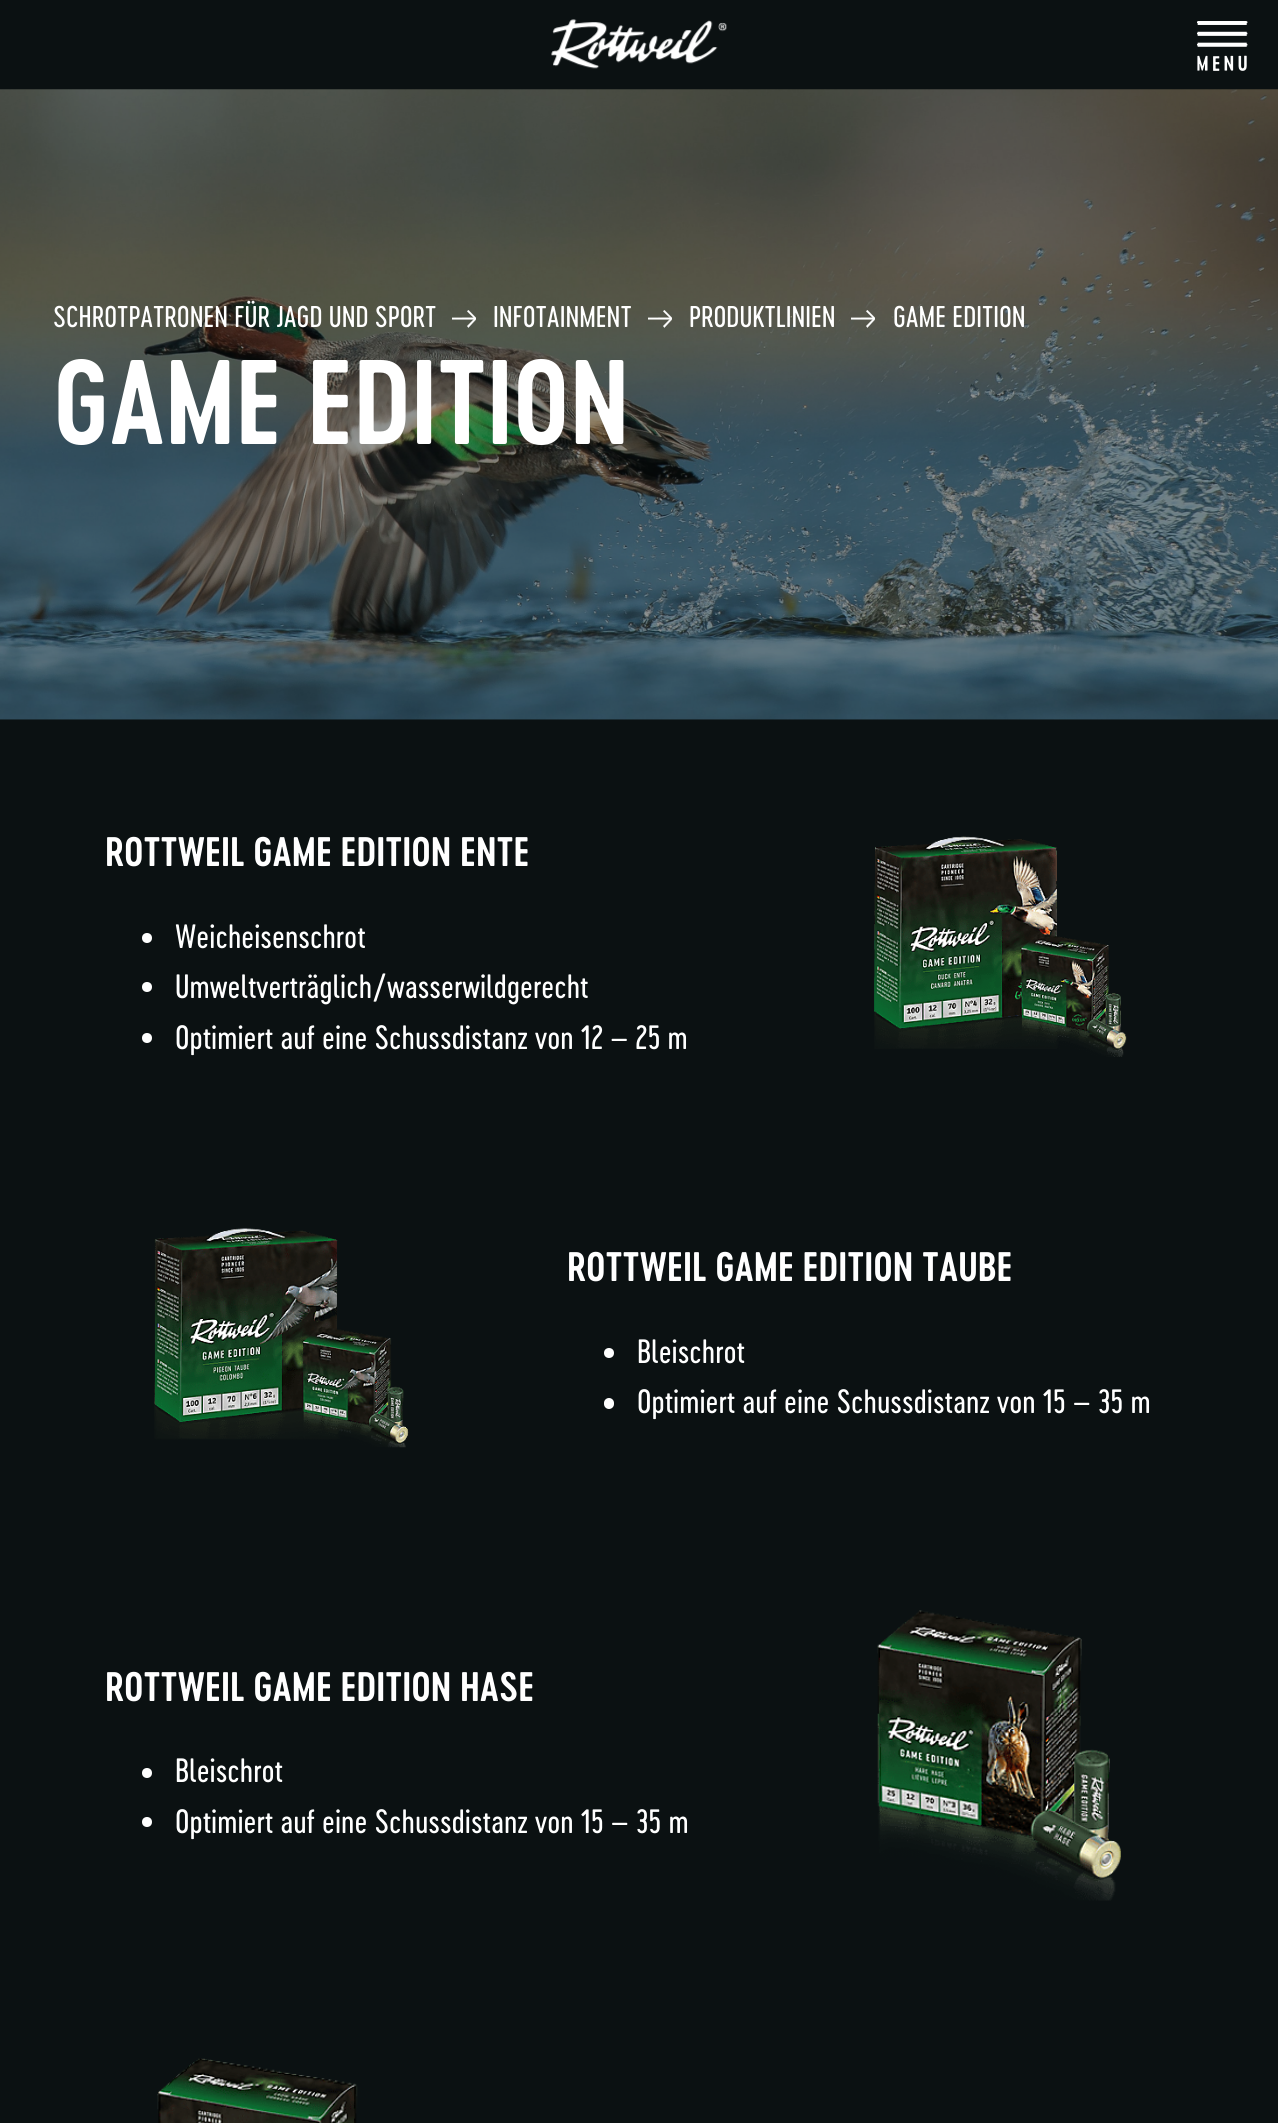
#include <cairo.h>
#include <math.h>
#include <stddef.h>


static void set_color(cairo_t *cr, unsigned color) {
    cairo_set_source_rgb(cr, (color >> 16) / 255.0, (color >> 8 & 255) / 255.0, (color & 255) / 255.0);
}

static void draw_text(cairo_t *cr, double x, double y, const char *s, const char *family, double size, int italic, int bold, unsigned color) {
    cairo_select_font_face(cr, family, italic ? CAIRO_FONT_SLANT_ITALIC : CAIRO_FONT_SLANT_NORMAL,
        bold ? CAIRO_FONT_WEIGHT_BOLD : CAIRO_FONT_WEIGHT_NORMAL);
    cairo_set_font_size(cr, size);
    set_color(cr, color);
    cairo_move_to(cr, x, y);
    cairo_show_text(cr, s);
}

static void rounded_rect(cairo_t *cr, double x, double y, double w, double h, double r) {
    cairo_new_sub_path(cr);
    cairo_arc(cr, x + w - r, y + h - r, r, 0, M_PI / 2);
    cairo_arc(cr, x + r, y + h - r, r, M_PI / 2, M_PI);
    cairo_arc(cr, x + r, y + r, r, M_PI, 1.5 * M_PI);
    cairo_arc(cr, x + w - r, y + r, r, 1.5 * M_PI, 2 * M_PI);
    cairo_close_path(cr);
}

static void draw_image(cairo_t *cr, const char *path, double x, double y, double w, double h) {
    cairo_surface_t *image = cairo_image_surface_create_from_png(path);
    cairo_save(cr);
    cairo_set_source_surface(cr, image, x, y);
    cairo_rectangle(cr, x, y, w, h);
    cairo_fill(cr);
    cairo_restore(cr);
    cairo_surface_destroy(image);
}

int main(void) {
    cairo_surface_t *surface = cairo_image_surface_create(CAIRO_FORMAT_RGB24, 1278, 2123);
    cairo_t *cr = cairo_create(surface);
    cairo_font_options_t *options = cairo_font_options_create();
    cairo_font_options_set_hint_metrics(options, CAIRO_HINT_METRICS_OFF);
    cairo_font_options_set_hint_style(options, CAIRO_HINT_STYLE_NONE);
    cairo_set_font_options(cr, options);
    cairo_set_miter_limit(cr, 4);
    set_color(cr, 0x0B1112);
    cairo_paint(cr);
    draw_image(cr, "assets/img1.png", 551, 19, 176, 50);
    draw_image(cr, "assets/img2.png", 1197, 21, 51, 50);
    draw_image(cr, "assets/img3.png", 0, 89, 1278, 631);
    draw_text(cr, 53, 327, "SCHROTPATRONEN FÜR JAGD UND SPORT", "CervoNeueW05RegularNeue", 28, 0, 0, 0xFFFFFF);
    draw_image(cr, "assets/img4.png", 452, 310, 24, 18);
    draw_text(cr, 493, 327, "INFOTAINMENT", "CervoNeueW05RegularNeue", 28, 0, 0, 0xFFFFFF);
    draw_image(cr, "assets/img5.png", 648, 310, 24, 18);
    draw_text(cr, 689, 327, "PRODUKTLINIEN", "CervoNeueW05RegularNeue", 28, 0, 0, 0xFFFFFF);
    draw_image(cr, "assets/img6.png", 851, 310, 24, 18);
    draw_text(cr, 893, 327, "GAME EDITION", "CervoNeueW05RegularNeue", 28, 0, 0, 0xFFFFFF);
    draw_text(cr, 53, 444, "GAME EDITION", "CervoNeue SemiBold", 112, 0, 0, 0xFFFFFF);
    draw_text(cr, 105, 866, "ROTTWEIL GAME EDITION ENTE", "CervoNeue SemiBold", 38.5, 0, 0, 0xFFFFFF);
    cairo_new_path(cr);
    cairo_arc(cr, 147, 938, 5, 0, 2 * M_PI);
    cairo_fill(cr);
    draw_text(cr, 175, 948, "Weicheisenschrot", "CervoNeueW05RegularNeue", 31.5, 0, 0, 0xFFFFFF);
    cairo_new_path(cr);
    cairo_arc(cr, 147, 987, 5, 0, 2 * M_PI);
    cairo_fill(cr);
    draw_text(cr, 175, 998, "Umweltverträglich/wasserwildgerecht", "CervoNeueW05RegularNeue", 31.5, 0, 0, 0xFFFFFF);
    cairo_new_path(cr);
    cairo_arc(cr, 147, 1038, 5, 0, 2 * M_PI);
    cairo_fill(cr);
    draw_text(cr, 175, 1049, "Optimiert auf eine Schussdistanz von 12 – 25 m", "CervoNeueW05RegularNeue", 31.5, 0, 0, 0xFFFFFF);
    draw_image(cr, "assets/img7.png", 874, 836, 253, 221);
    draw_image(cr, "assets/img8.png", 154, 1228, 255, 220);
    draw_text(cr, 567, 1281, "ROTTWEIL GAME EDITION TAUBE", "CervoNeue SemiBold", 38.5, 0, 0, 0xFFFFFF);
    cairo_new_path(cr);
    cairo_arc(cr, 609, 1353, 5, 0, 2 * M_PI);
    cairo_fill(cr);
    draw_text(cr, 637, 1363, "Bleischrot", "CervoNeueW05RegularNeue", 31.5, 0, 0, 0xFFFFFF);
    rounded_rect(cr, 604, 1398, 10, 11, 5);
    cairo_fill(cr);
    draw_text(cr, 637, 1413, "Optimiert auf eine Schussdistanz von 15 – 35 m", "CervoNeueW05RegularNeue", 31.5, 0, 0, 0xFFFFFF);
    draw_text(cr, 105, 1701, "ROTTWEIL GAME EDITION HASE", "CervoNeue SemiBold", 38.5, 0, 0, 0xFFFFFF);
    cairo_new_path(cr);
    cairo_arc(cr, 147, 1773, 5, 0, 2 * M_PI);
    cairo_fill(cr);
    draw_text(cr, 175, 1782, "Bleischrot", "CervoNeueW05RegularNeue", 31.5, 0, 0, 0xFFFFFF);
    cairo_new_path(cr);
    cairo_arc(cr, 147, 1822, 5, 0, 2 * M_PI);
    cairo_fill(cr);
    draw_text(cr, 175, 1833, "Optimiert auf eine Schussdistanz von 15 – 35 m", "CervoNeueW05RegularNeue", 31.5, 0, 0, 0xFFFFFF);
    draw_image(cr, "assets/img9.png", 877, 1610, 244, 291);
    draw_image(cr, "assets/img10.png", 157, 2058, 201, 65);
    cairo_surface_write_to_png(surface, "output.png");
    cairo_font_options_destroy(options);
    cairo_destroy(cr);
    cairo_surface_destroy(surface);
    return 0;
}
